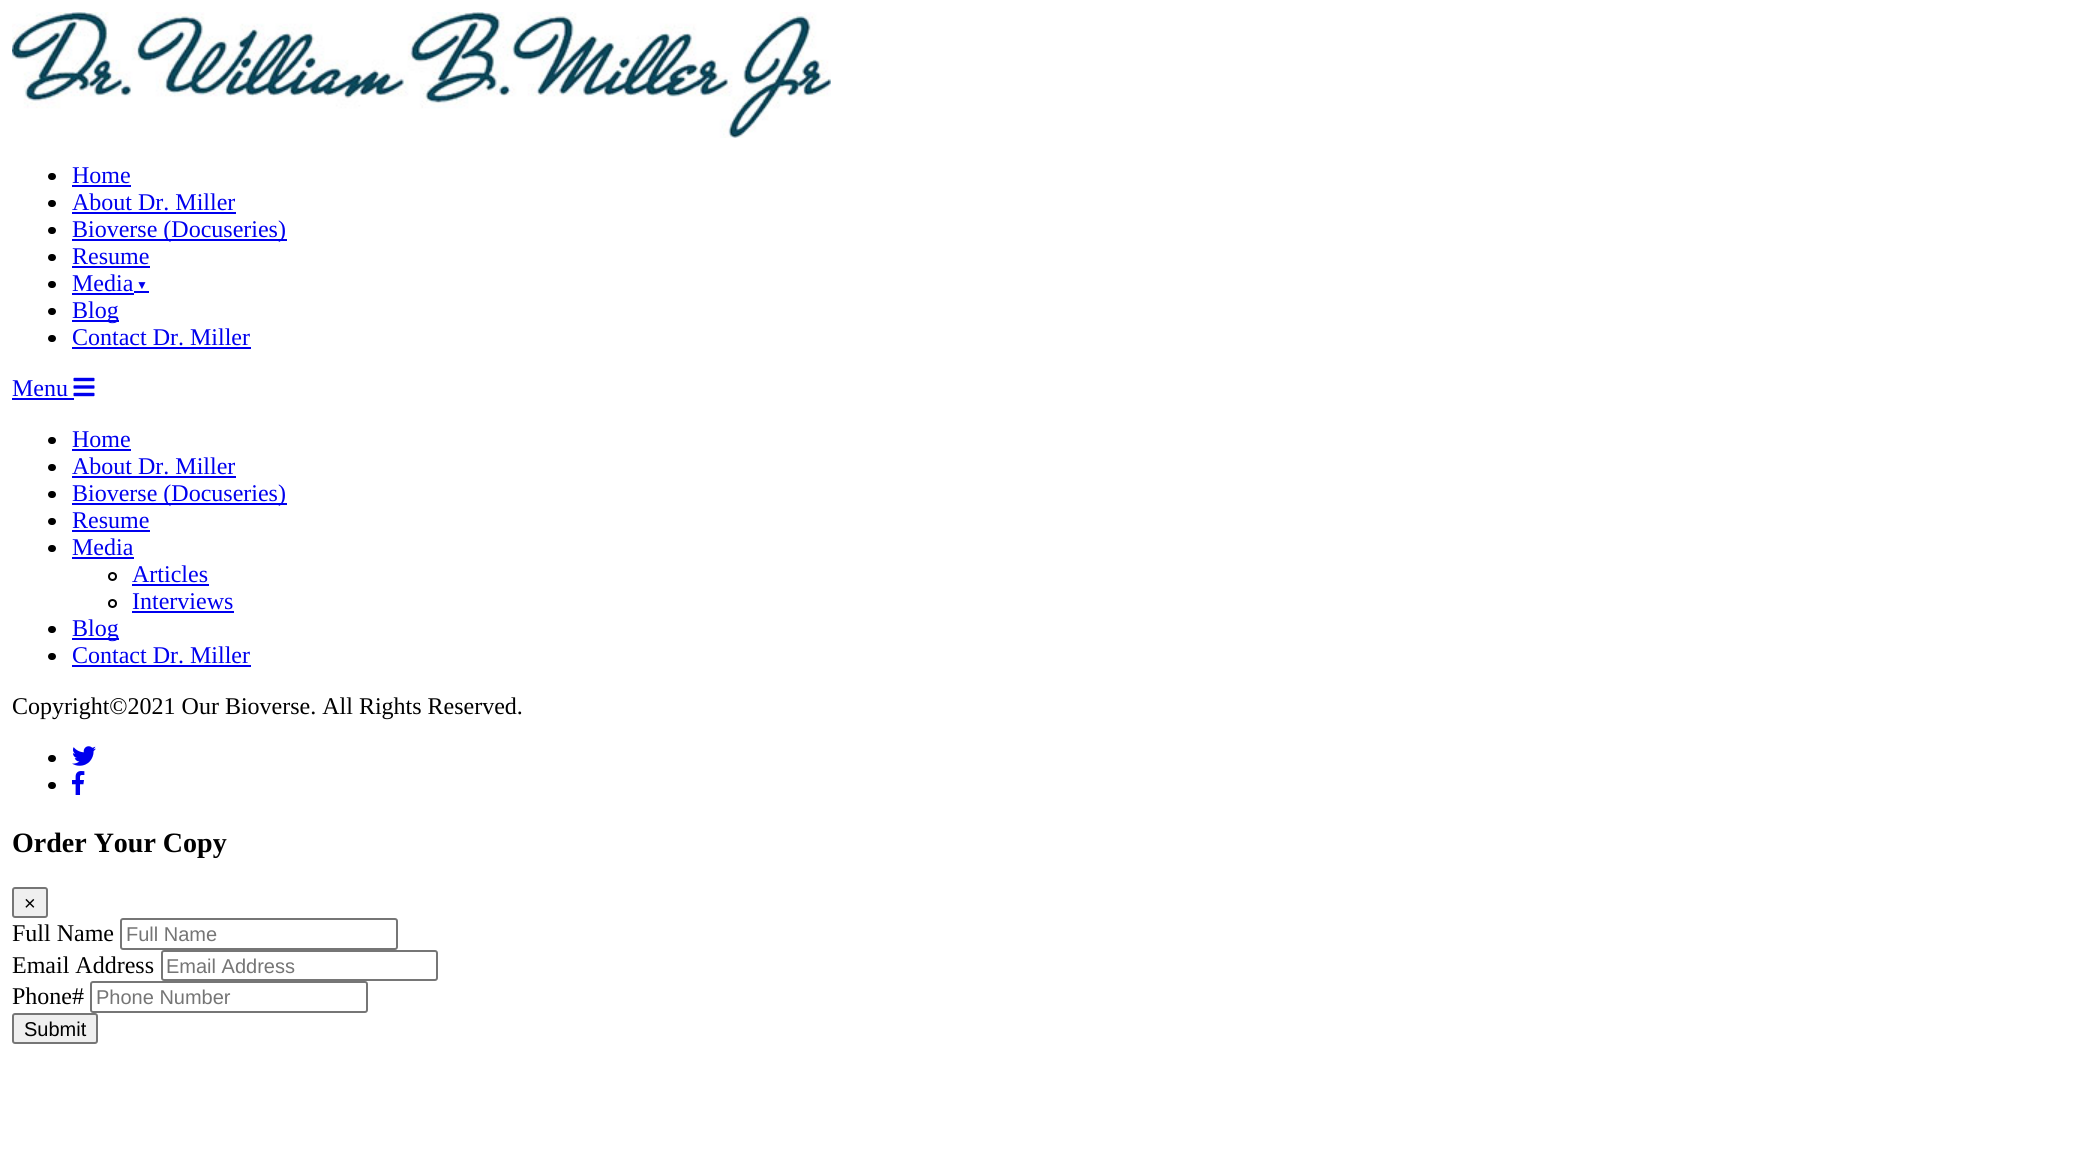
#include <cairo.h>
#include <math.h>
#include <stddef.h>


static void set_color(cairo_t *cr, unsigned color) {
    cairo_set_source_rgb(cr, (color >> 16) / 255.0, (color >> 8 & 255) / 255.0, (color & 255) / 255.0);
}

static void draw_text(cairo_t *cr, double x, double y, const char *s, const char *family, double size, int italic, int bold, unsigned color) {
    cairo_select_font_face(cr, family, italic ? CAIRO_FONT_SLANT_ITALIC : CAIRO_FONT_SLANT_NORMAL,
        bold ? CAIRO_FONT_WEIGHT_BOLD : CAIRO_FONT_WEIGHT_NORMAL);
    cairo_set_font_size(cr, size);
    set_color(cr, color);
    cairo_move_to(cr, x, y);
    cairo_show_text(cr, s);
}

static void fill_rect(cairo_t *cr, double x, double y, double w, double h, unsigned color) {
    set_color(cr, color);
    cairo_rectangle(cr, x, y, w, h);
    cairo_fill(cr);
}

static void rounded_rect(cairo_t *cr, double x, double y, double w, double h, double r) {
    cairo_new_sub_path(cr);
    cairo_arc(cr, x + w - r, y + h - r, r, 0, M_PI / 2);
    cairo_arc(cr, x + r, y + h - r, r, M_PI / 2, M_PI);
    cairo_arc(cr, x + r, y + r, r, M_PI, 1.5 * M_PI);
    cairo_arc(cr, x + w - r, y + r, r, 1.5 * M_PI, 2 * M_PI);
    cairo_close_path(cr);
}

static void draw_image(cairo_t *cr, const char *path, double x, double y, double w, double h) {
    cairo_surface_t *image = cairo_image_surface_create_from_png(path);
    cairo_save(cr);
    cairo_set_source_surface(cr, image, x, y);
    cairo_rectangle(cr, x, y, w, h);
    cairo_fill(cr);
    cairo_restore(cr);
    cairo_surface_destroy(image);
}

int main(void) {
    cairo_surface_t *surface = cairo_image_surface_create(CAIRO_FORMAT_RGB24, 2082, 1149);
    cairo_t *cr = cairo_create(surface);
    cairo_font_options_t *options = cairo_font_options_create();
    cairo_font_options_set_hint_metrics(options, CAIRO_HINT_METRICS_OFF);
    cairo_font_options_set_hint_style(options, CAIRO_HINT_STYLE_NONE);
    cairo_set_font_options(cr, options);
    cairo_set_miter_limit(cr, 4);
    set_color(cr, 0xFFFFFF);
    cairo_paint(cr);
    draw_image(cr, "assets/img1.png", 12, 12, 819, 126);
    set_color(cr, 0x000000);
    rounded_rect(cr, 48, 173, 8, 7, 3.5);
    cairo_fill(cr);
    draw_text(cr, 72, 183, "Home", "Liberation Serif", 24, 0, 0, 0x0000EE);
    fill_rect(cr, 72, 185, 59, 2, 0x0000EE);
    set_color(cr, 0x000000);
    rounded_rect(cr, 48, 200, 8, 7, 3.5);
    cairo_fill(cr);
    draw_text(cr, 72, 210, "About Dr. Miller", "Liberation Serif", 24, 0, 0, 0x0000EE);
    fill_rect(cr, 72, 212, 164, 2, 0x0000EE);
    set_color(cr, 0x000000);
    rounded_rect(cr, 48, 227, 8, 7, 3.5);
    cairo_fill(cr);
    fill_rect(cr, 72, 239, 215, 2, 0x0000EE);
    draw_text(cr, 72, 237, "Bioverse (Docuseries)", "Liberation Serif", 24, 0, 0, 0x0000EE);
    set_color(cr, 0x000000);
    rounded_rect(cr, 48, 254, 8, 7, 3.5);
    cairo_fill(cr);
    draw_text(cr, 72, 264, "Resume", "Liberation Serif", 24, 0, 0, 0x0000EE);
    fill_rect(cr, 72, 266, 78, 2, 0x0000EE);
    set_color(cr, 0x000000);
    rounded_rect(cr, 48, 281, 8, 7, 3.5);
    cairo_fill(cr);
    draw_text(cr, 72, 291, "Media", "Liberation Serif", 24, 0, 0, 0x0000EE);
    draw_text(cr, 136, 289, "▼", "Liberation Serif", 12, 0, 0, 0x0000EE);
    fill_rect(cr, 72, 293, 62, 2, 0x0000EE);
    fill_rect(cr, 134, 291, 15, 2, 0x0000EE);
    set_color(cr, 0x000000);
    rounded_rect(cr, 48, 308, 8, 7, 3.5);
    cairo_fill(cr);
    fill_rect(cr, 72, 320, 47, 2, 0x0000EE);
    draw_text(cr, 72, 318, "Blog", "Liberation Serif", 24, 0, 0, 0x0000EE);
    set_color(cr, 0x000000);
    rounded_rect(cr, 48, 335, 8, 7, 3.5);
    cairo_fill(cr);
    draw_text(cr, 72, 345, "Contact Dr. Miller", "Liberation Serif", 24, 0, 0, 0x0000EE);
    fill_rect(cr, 72, 347, 179, 2, 0x0000EE);
    draw_text(cr, 12, 396, "Menu", "Liberation Serif", 24, 0, 0, 0x0000EE);
    fill_rect(cr, 12, 398, 62, 2, 0x0000EE);
    draw_image(cr, "assets/img2.png", 73, 377, 22, 20);
    set_color(cr, 0x000000);
    rounded_rect(cr, 48, 437, 8, 7, 3.5);
    cairo_fill(cr);
    draw_text(cr, 72, 447, "Home", "Liberation Serif", 24, 0, 0, 0x0000EE);
    fill_rect(cr, 72, 449, 59, 2, 0x0000EE);
    set_color(cr, 0x000000);
    rounded_rect(cr, 48, 464, 8, 7, 3.5);
    cairo_fill(cr);
    draw_text(cr, 72, 474, "About Dr. Miller", "Liberation Serif", 24, 0, 0, 0x0000EE);
    fill_rect(cr, 72, 476, 164, 2, 0x0000EE);
    set_color(cr, 0x000000);
    rounded_rect(cr, 48, 491, 8, 7, 3.5);
    cairo_fill(cr);
    fill_rect(cr, 72, 503, 215, 2, 0x0000EE);
    draw_text(cr, 72, 501, "Bioverse (Docuseries)", "Liberation Serif", 24, 0, 0, 0x0000EE);
    set_color(cr, 0x000000);
    rounded_rect(cr, 48, 518, 8, 7, 3.5);
    cairo_fill(cr);
    draw_text(cr, 72, 528, "Resume", "Liberation Serif", 24, 0, 0, 0x0000EE);
    fill_rect(cr, 72, 530, 78, 2, 0x0000EE);
    set_color(cr, 0x000000);
    rounded_rect(cr, 48, 545, 8, 7, 3.5);
    cairo_fill(cr);
    draw_text(cr, 72, 555, "Media", "Liberation Serif", 24, 0, 0, 0x0000EE);
    fill_rect(cr, 72, 557, 62, 2, 0x0000EE);
    cairo_new_path(cr);
    cairo_arc(cr, 112.5, 576.5, 3.5, 0, 2 * M_PI);
    set_color(cr, 0x000000);
    cairo_stroke(cr);
    draw_text(cr, 132, 582, "Articles", "Liberation Serif", 24, 0, 0, 0x0000EE);
    fill_rect(cr, 132, 584, 77, 2, 0x0000EE);
    cairo_new_path(cr);
    cairo_arc(cr, 112.5, 603.5, 3.5, 0, 2 * M_PI);
    set_color(cr, 0x000000);
    cairo_stroke(cr);
    draw_text(cr, 132, 609, "Interviews", "Liberation Serif", 24, 0, 0, 0x0000EE);
    fill_rect(cr, 132, 611, 102, 2, 0x0000EE);
    set_color(cr, 0x000000);
    rounded_rect(cr, 48, 626, 8, 7, 3.5);
    cairo_fill(cr);
    fill_rect(cr, 72, 638, 47, 2, 0x0000EE);
    draw_text(cr, 72, 636, "Blog", "Liberation Serif", 24, 0, 0, 0x0000EE);
    set_color(cr, 0x000000);
    rounded_rect(cr, 48, 653, 8, 7, 3.5);
    cairo_fill(cr);
    draw_text(cr, 72, 663, "Contact Dr. Miller", "Liberation Serif", 24, 0, 0, 0x0000EE);
    fill_rect(cr, 72, 665, 179, 2, 0x0000EE);
    draw_text(cr, 12, 714, "Copyright©2021 Our Bioverse. All Rights Reserved.", "Liberation Serif", 24, 0, 0, 0x000000);
    rounded_rect(cr, 48, 755, 8, 7, 3.5);
    cairo_fill(cr);
    draw_image(cr, "assets/img3.png", 72, 746, 24, 20);
    rounded_rect(cr, 48, 782, 8, 7, 3.5);
    cairo_fill(cr);
    draw_image(cr, "assets/img4.png", 72, 771, 13, 24);
    draw_text(cr, 12, 852, "Order Your Copy", "Liberation Serif", 28, 0, 1, 0x000000);
    set_color(cr, 0xEFEFEF);
    rounded_rect(cr, 13, 888, 34, 29, 2);
    cairo_fill_preserve(cr);
    set_color(cr, 0x767676);
    cairo_stroke(cr);
    draw_text(cr, 24, 910, "×", "Liberation Sans", 20, 0, 0, 0x000000);
    draw_text(cr, 12, 941, "Full Name", "Liberation Serif", 24, 0, 0, 0x000000);
    rounded_rect(cr, 121, 919, 276, 30, 2);
    set_color(cr, 0x767676);
    cairo_stroke(cr);
    draw_text(cr, 126, 941, "Full Name", "Liberation Sans", 20, 0, 0, 0x757575);
    draw_text(cr, 12, 973, "Email Address", "Liberation Serif", 24, 0, 0, 0x000000);
    rounded_rect(cr, 162, 951, 275, 29, 2);
    set_color(cr, 0x767676);
    cairo_stroke(cr);
    draw_text(cr, 166, 973, "Email Address", "Liberation Sans", 20, 0, 0, 0x757575);
    draw_text(cr, 12, 1004, "Phone#", "Liberation Serif", 24, 0, 0, 0x000000);
    rounded_rect(cr, 91, 982, 276, 30, 2);
    set_color(cr, 0x767676);
    cairo_stroke(cr);
    draw_text(cr, 96, 1004, "Phone Number", "Liberation Sans", 20, 0, 0, 0x757575);
    set_color(cr, 0xEFEFEF);
    rounded_rect(cr, 13, 1014, 84, 29, 2);
    cairo_fill_preserve(cr);
    set_color(cr, 0x767676);
    cairo_stroke(cr);
    draw_text(cr, 24, 1036, "Submit", "Liberation Sans", 20, 0, 0, 0x000000);
    cairo_surface_write_to_png(surface, "output.png");
    cairo_font_options_destroy(options);
    cairo_destroy(cr);
    cairo_surface_destroy(surface);
    return 0;
}
